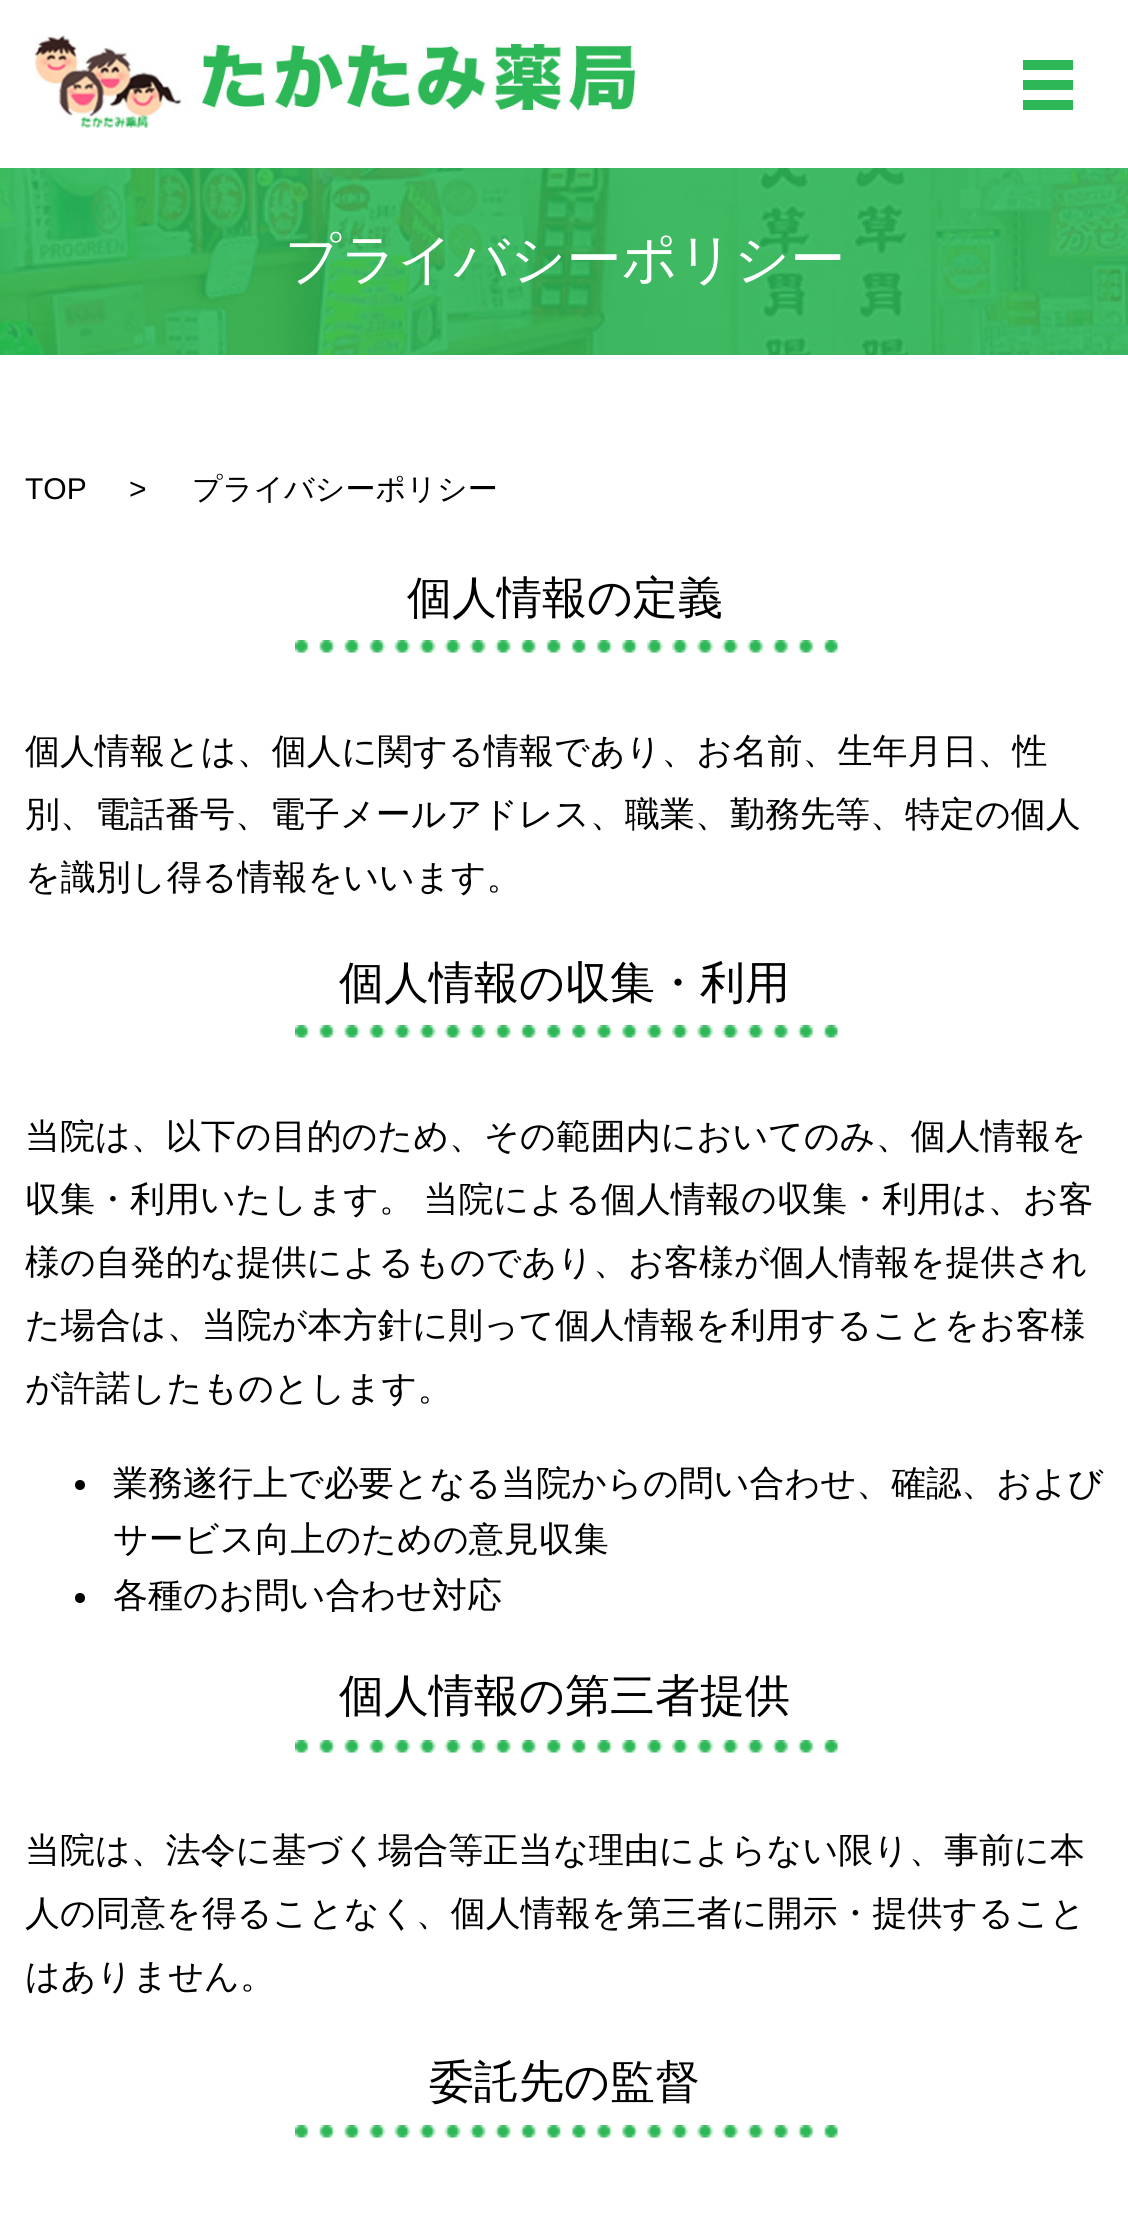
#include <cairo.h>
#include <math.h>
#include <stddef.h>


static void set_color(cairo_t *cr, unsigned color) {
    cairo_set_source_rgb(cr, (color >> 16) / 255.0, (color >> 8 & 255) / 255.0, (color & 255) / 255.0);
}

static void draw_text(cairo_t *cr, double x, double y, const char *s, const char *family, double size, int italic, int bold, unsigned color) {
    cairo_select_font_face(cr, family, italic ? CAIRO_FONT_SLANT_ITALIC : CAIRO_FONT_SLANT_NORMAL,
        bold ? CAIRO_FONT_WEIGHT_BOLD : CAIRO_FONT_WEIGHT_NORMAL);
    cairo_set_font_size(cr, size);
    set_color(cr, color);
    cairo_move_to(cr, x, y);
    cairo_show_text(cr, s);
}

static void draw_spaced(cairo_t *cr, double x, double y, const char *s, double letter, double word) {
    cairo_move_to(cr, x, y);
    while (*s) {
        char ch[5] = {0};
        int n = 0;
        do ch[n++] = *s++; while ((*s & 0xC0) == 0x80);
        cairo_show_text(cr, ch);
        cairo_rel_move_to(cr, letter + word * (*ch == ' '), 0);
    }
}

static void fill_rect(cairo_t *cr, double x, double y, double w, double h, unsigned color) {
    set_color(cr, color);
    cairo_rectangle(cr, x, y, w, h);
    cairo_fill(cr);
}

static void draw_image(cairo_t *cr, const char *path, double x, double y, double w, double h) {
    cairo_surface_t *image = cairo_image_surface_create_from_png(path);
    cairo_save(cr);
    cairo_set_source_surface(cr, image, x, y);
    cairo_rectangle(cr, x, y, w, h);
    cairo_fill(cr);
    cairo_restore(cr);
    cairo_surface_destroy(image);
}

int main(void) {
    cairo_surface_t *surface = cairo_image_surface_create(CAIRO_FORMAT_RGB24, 1128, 2230);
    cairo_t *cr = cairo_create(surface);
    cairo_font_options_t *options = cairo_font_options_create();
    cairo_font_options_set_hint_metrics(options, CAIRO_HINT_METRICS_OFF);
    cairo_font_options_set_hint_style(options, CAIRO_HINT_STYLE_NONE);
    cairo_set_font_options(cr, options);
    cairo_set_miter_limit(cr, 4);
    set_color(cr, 0xFFFFFF);
    cairo_paint(cr);
    draw_image(cr, "assets/img1.png", 35, 35, 600, 93);
    fill_rect(cr, 1023, 60, 50, 10, 0x2DB757);
    fill_rect(cr, 1023, 80, 50, 10, 0x2DB757);
    fill_rect(cr, 1023, 100, 50, 10, 0x2DB757);
    draw_image(cr, "assets/img2.png", 0, 168, 1128, 187);
    draw_text(cr, 285, 278, "プライバシーポリシー", "WenQuanYi Zen Hei Medium", 55, 0, 0, 0xFFFFFF);
    draw_text(cr, 25, 499, "TOP", "Liberation Sans", 30, 0, 0, 0x000000);
    draw_text(cr, 129, 499, ">", "Liberation Sans", 30, 0, 0, 0x000000);
    draw_text(cr, 192, 499, "プライバシーポリシー", "WenQuanYi Zen Hei Medium", 30, 0, 0, 0x000000);
    draw_text(cr, 407, 613, "個人情報の定義", "WenQuanYi Zen Hei Medium", 45, 0, 0, 0x000000);
    draw_image(cr, "assets/img3.png", 295, 640, 543, 13);
    draw_text(cr, 25, 763, "個人情報とは、個人に関する情報であり、お名前、生年月日、性", "WenQuanYi Zen Hei Medium", 35, 0, 0, 0x000000);
    draw_text(cr, 25, 826, "別、電話番号、電子メールアドレス、職業、勤務先等、特定の個人", "WenQuanYi Zen Hei Medium", 35, 0, 0, 0x000000);
    draw_text(cr, 25, 889, "を識別し得る情報をいいます。", "WenQuanYi Zen Hei Medium", 35, 0, 0, 0x000000);
    draw_text(cr, 339, 998, "個人情報の収集・利用", "WenQuanYi Zen Hei Medium", 45, 0, 0, 0x000000);
    draw_image(cr, "assets/img4.png", 295, 1025, 543, 13);
    draw_text(cr, 25, 1148, "当院は、以下の目的のため、その範囲内においてのみ、個人情報を", "WenQuanYi Zen Hei Medium", 35, 0, 0, 0x000000);
    draw_spaced(cr, 25, 1211, "収集・利用いたします。 当院による個人情報の収集・利用は、お客", 0, -1);
    draw_text(cr, 25, 1274, "様の自発的な提供によるものであり、お客様が個人情報を提供され", "WenQuanYi Zen Hei Medium", 35, 0, 0, 0x000000);
    draw_text(cr, 25, 1337, "た場合は、当院が本方針に則って個人情報を利用することをお客様", "WenQuanYi Zen Hei Medium", 35, 0, 0, 0x000000);
    draw_text(cr, 25, 1400, "が許諾したものとします。", "WenQuanYi Zen Hei Medium", 35, 0, 0, 0x000000);
    cairo_new_path(cr);
    cairo_arc(cr, 80, 1485, 5, 0, 2 * M_PI);
    cairo_fill(cr);
    draw_text(cr, 113, 1495, "業務遂行上で必要となる当院からの問い合わせ、確認、および", "WenQuanYi Zen Hei Medium", 35, 0, 0, 0x000000);
    draw_text(cr, 113, 1551, "サービス向上のための意見収集", "WenQuanYi Zen Hei Medium", 35, 0, 0, 0x000000);
    cairo_new_path(cr);
    cairo_arc(cr, 80, 1598, 5, 0, 2 * M_PI);
    cairo_fill(cr);
    draw_text(cr, 113, 1607, "各種のお問い合わせ対応", "WenQuanYi Zen Hei Medium", 35, 0, 0, 0x000000);
    draw_text(cr, 339, 1711, "個人情報の第三者提供", "WenQuanYi Zen Hei Medium", 45, 0, 0, 0x000000);
    draw_image(cr, "assets/img3.png", 295, 1740, 543, 13);
    draw_text(cr, 25, 1862, "当院は、法令に基づく場合等正当な理由によらない限り、事前に本", "WenQuanYi Zen Hei Medium", 35, 0, 0, 0x000000);
    draw_text(cr, 25, 1925, "人の同意を得ることなく、個人情報を第三者に開示・提供すること", "WenQuanYi Zen Hei Medium", 35, 0, 0, 0x000000);
    draw_text(cr, 25, 1988, "はありません。", "WenQuanYi Zen Hei Medium", 35, 0, 0, 0x000000);
    draw_text(cr, 429, 2097, "委託先の監督", "WenQuanYi Zen Hei Medium", 45, 0, 0, 0x000000);
    draw_image(cr, "assets/img3.png", 295, 2125, 543, 13);
    cairo_surface_write_to_png(surface, "output.png");
    cairo_font_options_destroy(options);
    cairo_destroy(cr);
    cairo_surface_destroy(surface);
    return 0;
}
